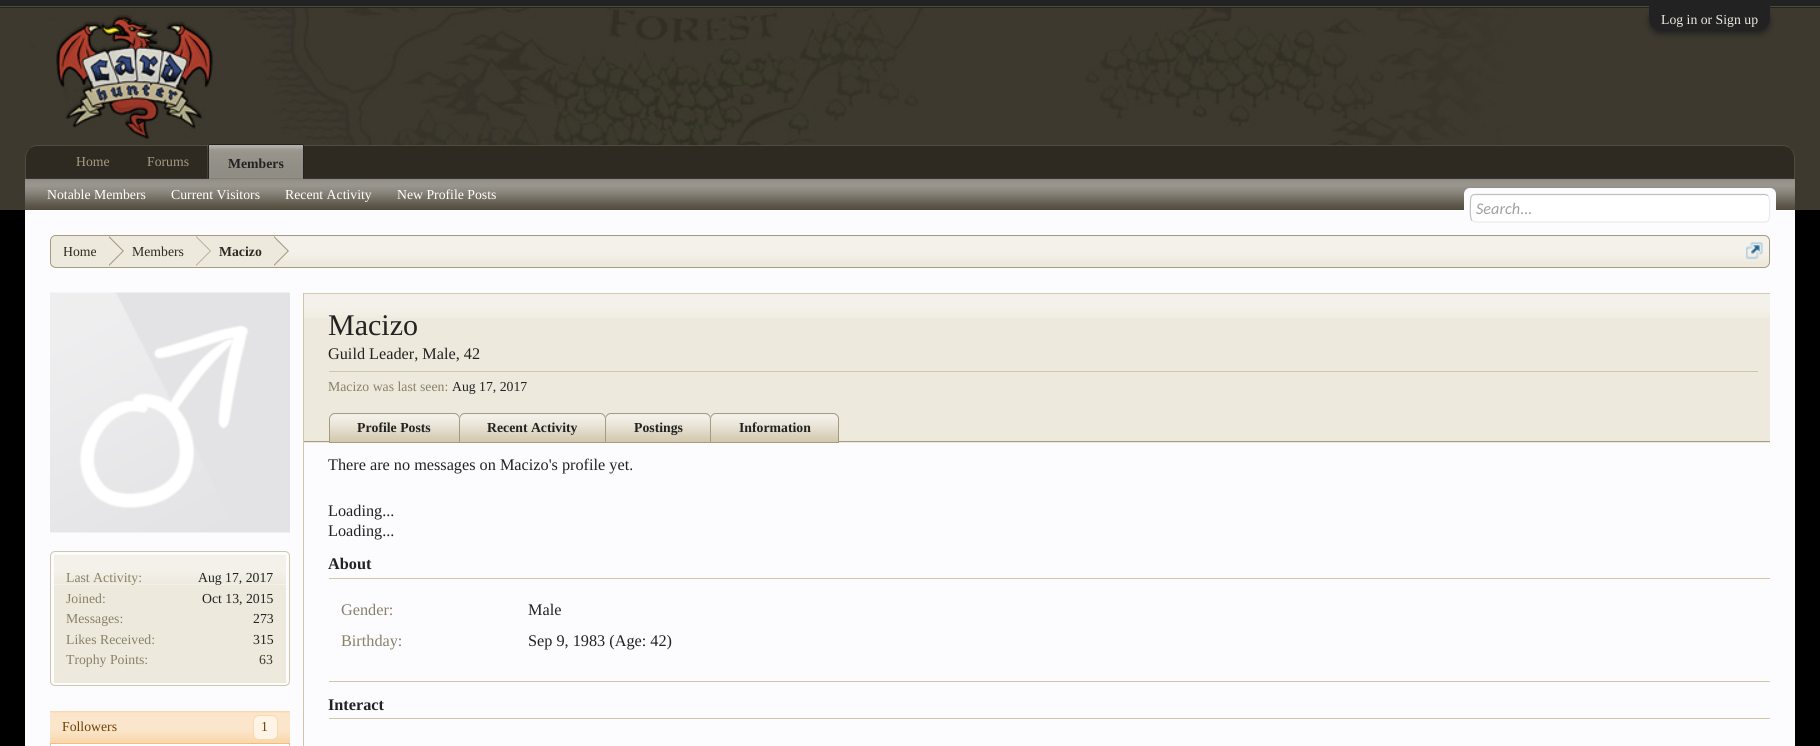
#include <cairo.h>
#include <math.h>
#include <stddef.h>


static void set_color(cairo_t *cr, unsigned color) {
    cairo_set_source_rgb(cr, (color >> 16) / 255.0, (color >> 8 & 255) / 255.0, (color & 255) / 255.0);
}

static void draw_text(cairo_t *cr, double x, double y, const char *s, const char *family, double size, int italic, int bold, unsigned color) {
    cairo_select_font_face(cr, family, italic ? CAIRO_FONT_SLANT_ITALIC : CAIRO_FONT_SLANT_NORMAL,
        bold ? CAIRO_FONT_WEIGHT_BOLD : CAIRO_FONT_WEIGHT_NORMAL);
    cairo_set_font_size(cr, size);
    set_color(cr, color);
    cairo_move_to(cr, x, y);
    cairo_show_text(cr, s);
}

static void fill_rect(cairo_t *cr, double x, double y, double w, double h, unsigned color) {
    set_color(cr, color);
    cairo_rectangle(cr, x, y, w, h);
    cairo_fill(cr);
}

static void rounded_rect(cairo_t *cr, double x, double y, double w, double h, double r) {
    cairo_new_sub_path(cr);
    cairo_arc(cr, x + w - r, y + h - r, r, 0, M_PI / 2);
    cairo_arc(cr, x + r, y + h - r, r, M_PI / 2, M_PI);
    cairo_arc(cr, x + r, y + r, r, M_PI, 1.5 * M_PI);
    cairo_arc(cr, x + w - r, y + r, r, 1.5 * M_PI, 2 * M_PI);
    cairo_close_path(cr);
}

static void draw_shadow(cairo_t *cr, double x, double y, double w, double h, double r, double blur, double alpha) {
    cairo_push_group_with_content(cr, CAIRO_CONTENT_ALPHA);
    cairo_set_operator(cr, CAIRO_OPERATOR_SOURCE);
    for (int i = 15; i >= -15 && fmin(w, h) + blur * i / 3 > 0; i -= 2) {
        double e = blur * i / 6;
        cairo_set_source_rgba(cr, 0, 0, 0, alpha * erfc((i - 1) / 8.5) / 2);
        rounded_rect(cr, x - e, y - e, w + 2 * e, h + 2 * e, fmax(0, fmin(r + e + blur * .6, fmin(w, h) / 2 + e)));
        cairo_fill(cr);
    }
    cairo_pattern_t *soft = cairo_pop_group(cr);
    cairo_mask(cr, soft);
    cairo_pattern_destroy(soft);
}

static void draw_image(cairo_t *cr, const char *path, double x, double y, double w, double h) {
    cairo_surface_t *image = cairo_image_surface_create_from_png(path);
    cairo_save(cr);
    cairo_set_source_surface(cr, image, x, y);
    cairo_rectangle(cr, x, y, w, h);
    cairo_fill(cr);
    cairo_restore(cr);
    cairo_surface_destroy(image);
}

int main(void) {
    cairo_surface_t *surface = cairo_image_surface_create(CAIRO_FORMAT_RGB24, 1820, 746);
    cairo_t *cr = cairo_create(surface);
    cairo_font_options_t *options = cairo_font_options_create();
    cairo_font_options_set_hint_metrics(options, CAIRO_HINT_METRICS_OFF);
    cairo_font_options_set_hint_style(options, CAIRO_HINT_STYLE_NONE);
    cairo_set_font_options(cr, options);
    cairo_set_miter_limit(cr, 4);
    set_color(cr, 0x000000);
    cairo_paint(cr);
    fill_rect(cr, 0, 0, 1820, 8, 0x222222);
    fill_rect(cr, 0, 6, 1820, 1, 0x524C3E);
    fill_rect(cr, 0, 8, 1820, 202, 0x3D392E);
    set_color(cr, 0x222222);
    draw_shadow(cr, 1649, 9, 121, 25, 12.5, 3, 1);
    set_color(cr, 0x222222);
    cairo_new_path(cr);
    cairo_move_to(cr, 1649, 6);
    cairo_line_to(cr, 1770, 6);
    cairo_line_to(cr, 1770, 18.5);
    cairo_curve_to(cr, 1770, 25.5, 1764.5, 31, 1757.5, 31);
    cairo_line_to(cr, 1661.5, 31);
    cairo_curve_to(cr, 1654.5, 31, 1649, 25.5, 1649, 18.5);
    cairo_close_path(cr);
    cairo_fill(cr);
    draw_text(cr, 1661, 24, "Log in or Sign up", "Liberation Serif", 13.75, 0, 0, 0xEDE9DD);
    draw_image(cr, "assets/img1.png", 25, 8, 1500, 137);
    set_color(cr, 0x2E2A21);
    cairo_new_path(cr);
    cairo_move_to(cr, 38, 145);
    cairo_line_to(cr, 1782, 145);
    cairo_curve_to(cr, 1789, 145, 1795, 151, 1795, 158);
    cairo_line_to(cr, 1795, 179);
    cairo_line_to(cr, 25, 179);
    cairo_line_to(cr, 25, 158);
    cairo_curve_to(cr, 25, 151, 31, 145, 38, 145);
    cairo_close_path(cr);
    cairo_fill(cr);
    set_color(cr, 0x524C3E);
    cairo_new_path(cr);
    cairo_move_to(cr, 38, 145);
    cairo_curve_to(cr, 34, 145, 31, 146, 29, 149);
    cairo_curve_to(cr, 32, 147, 34, 146, 38, 146);
    cairo_line_to(cr, 1782, 146);
    cairo_curve_to(cr, 1786, 146, 1788, 147, 1791, 149);
    cairo_curve_to(cr, 1789, 146, 1786, 145, 1782, 145);
    cairo_close_path(cr);
    cairo_fill(cr);
    cairo_new_path(cr);
    cairo_move_to(cr, 1795, 179);
    cairo_line_to(cr, 1795, 158);
    cairo_curve_to(cr, 1795, 154.5, 1793.5, 151, 1791, 149);
    cairo_line_to(cr, 1790.5, 149.5);
    cairo_curve_to(cr, 1793, 151.5, 1794, 154.5, 1794, 158);
    cairo_line_to(cr, 1794, 178);
    cairo_close_path(cr);
    cairo_fill(cr);
    set_color(cr, 0x222222);
    cairo_new_path(cr);
    cairo_move_to(cr, 1795, 179);
    cairo_line_to(cr, 25, 179);
    cairo_line_to(cr, 26, 178);
    cairo_line_to(cr, 1794, 178);
    cairo_close_path(cr);
    cairo_fill(cr);
    set_color(cr, 0x524C3E);
    cairo_new_path(cr);
    cairo_move_to(cr, 25, 179);
    cairo_line_to(cr, 26, 178);
    cairo_line_to(cr, 26, 158);
    cairo_curve_to(cr, 26, 154.5, 27, 151.5, 29.5, 149.5);
    cairo_line_to(cr, 29, 149);
    cairo_curve_to(cr, 26.5, 151, 25, 154.5, 25, 158);
    cairo_close_path(cr);
    cairo_fill(cr);
    draw_text(cr, 76, 166, "Home", "Liberation Serif", 13.75, 0, 0, 0xA59B81);
    draw_text(cr, 147, 166, "Forums", "Liberation Serif", 13.75, 0, 0, 0xA59B81);
    set_color(cr, 0x524C3E);
    cairo_new_path(cr);
    cairo_move_to(cr, 210.5, 144);
    cairo_line_to(cr, 301.5, 144);
    cairo_curve_to(cr, 303, 144, 304, 145, 304, 146.5);
    cairo_line_to(cr, 304, 179);
    cairo_line_to(cr, 208, 179);
    cairo_line_to(cr, 208, 146.5);
    cairo_curve_to(cr, 208, 145, 209, 144, 210.5, 144);
    cairo_close_path(cr);
    cairo_fill(cr);
    draw_image(cr, "assets/img2.png", 207, 145, 96, 34);
    fill_rect(cr, 209, 144, 94, 1, 0x222222);
    fill_rect(cr, 303, 145, 1, 34, 0x222222);
    fill_rect(cr, 208, 145, 1, 34, 0x222222);
    draw_text(cr, 228, 168, "Members", "Liberation Serif", 13.75, 0, 1, 0x222222);
    fill_rect(cr, 25, 179, 1770, 31, 0x524C3E);
    draw_image(cr, "assets/img3.png", 25, 178, 1770, 31);
    draw_text(cr, 47, 199, "Notable Members", "Liberation Serif", 13.75, 0, 0, 0xFFFFFF);
    draw_text(cr, 171, 199, "Current Visitors", "Liberation Serif", 13.75, 0, 0, 0xFFFFFF);
    draw_text(cr, 285, 199, "Recent Activity", "Liberation Serif", 13.75, 0, 0, 0xFFFFFF);
    draw_text(cr, 397, 199, "New Profile Posts", "Liberation Serif", 13.75, 0, 0, 0xFFFFFF);
    fill_rect(cr, 25, 210, 1770, 536, 0xFCFCFF);
    rounded_rect(cr, 1464, 188, 312, 35, 6);
    cairo_fill(cr);
    set_color(cr, 0xFFFFFF);
    rounded_rect(cr, 1470, 194, 300, 29, 5);
    cairo_fill(cr);
    cairo_new_path(cr);
    cairo_move_to(cr, 1768, 195.5);
    cairo_curve_to(cr, 1770.5, 198.5, 1769.5, 210.5, 1769.5, 214.5);
    cairo_curve_to(cr, 1769.5, 217.5, 1769.5, 222, 1765, 222);
    cairo_line_to(cr, 1475, 222);
    cairo_line_to(cr, 1472, 220.5);
    set_color(cr, 0xE9E9E9);
    cairo_set_line_width(cr, 1.2);
    cairo_stroke(cr);
    cairo_new_path(cr);
    cairo_move_to(cr, 1472, 220.5);
    cairo_curve_to(cr, 1469.5, 218, 1470.5, 205.5, 1470.5, 202);
    cairo_curve_to(cr, 1470.5, 198.5, 1470.5, 194.5, 1475, 194.5);
    cairo_line_to(cr, 1765, 194.5);
    cairo_line_to(cr, 1768, 195.5);
    set_color(cr, 0xC0C0C0);
    cairo_stroke(cr);
    draw_text(cr, 1476, 214, "Search...", "Carlito", 16.25, 1, 0, 0xA0A0A0);
    set_color(cr, 0xEDE9DD);
    rounded_rect(cr, 50, 235, 1720, 33, 6);
    cairo_fill(cr);
    draw_image(cr, "assets/img4.png", 50, 236, 1720, 25);
    rounded_rect(cr, 50.5, 235.5, 1719, 32, 5.5);
    set_color(cr, 0xA59B81);
    cairo_set_line_width(cr, 1);
    cairo_stroke(cr);
    cairo_save(cr);
    rounded_rect(cr, 51, 236, 1718, 30, 5);
    cairo_clip(cr);
    set_color(cr, 0xEDE9DD);
    cairo_new_path(cr);
    cairo_move_to(cr, 57, 236);
    cairo_line_to(cr, 109, 236);
    cairo_line_to(cr, 109, 268);
    cairo_line_to(cr, 57, 268);
    cairo_curve_to(cr, 53.5, 268, 51, 265.5, 51, 262);
    cairo_line_to(cr, 51, 242);
    cairo_curve_to(cr, 51, 238.5, 53.5, 236, 57, 236);
    cairo_close_path(cr);
    cairo_fill(cr);
    cairo_restore(cr);
    cairo_save(cr);
    cairo_rectangle(cr, 64, 236, 32, 30);
    cairo_clip(cr);
    draw_text(cr, 63, 256, "Home", "Liberation Serif", 13.75, 0, 0, 0x2E2A21);
    cairo_restore(cr);
    fill_rect(cr, 109, 236, 165, 25, 0xEDE9DD);
    set_color(cr, 0xA59B81);
    cairo_new_path(cr);
    cairo_move_to(cr, 109, 266);
    cairo_line_to(cr, 109, 236);
    cairo_line_to(cr, 124, 251);
    cairo_close_path(cr);
    cairo_fill(cr);
    set_color(cr, 0xEDE9DD);
    cairo_new_path(cr);
    cairo_move_to(cr, 107.5, 266);
    cairo_line_to(cr, 107.5, 236);
    cairo_line_to(cr, 122.5, 251);
    cairo_close_path(cr);
    cairo_fill(cr);
    draw_text(cr, 132, 256, "Members", "Liberation Serif", 13.75, 0, 0, 0x2E2A21);
    set_color(cr, 0xA59B81);
    cairo_new_path(cr);
    cairo_move_to(cr, 196, 266);
    cairo_line_to(cr, 196, 236);
    cairo_line_to(cr, 211, 251);
    cairo_close_path(cr);
    cairo_fill(cr);
    set_color(cr, 0xEDE9DD);
    cairo_new_path(cr);
    cairo_move_to(cr, 195, 266);
    cairo_line_to(cr, 195, 236);
    cairo_line_to(cr, 210, 251);
    cairo_close_path(cr);
    cairo_fill(cr);
    draw_text(cr, 219, 256, "Macizo", "Liberation Serif", 13.75, 0, 1, 0x2E2A21);
    set_color(cr, 0xA59B81);
    cairo_new_path(cr);
    cairo_move_to(cr, 274, 266);
    cairo_line_to(cr, 274, 236);
    cairo_line_to(cr, 289, 251);
    cairo_close_path(cr);
    cairo_fill(cr);
    set_color(cr, 0xEDE9DD);
    cairo_new_path(cr);
    cairo_move_to(cr, 272.5, 266);
    cairo_line_to(cr, 272.5, 236);
    cairo_line_to(cr, 287.5, 251);
    cairo_close_path(cr);
    cairo_fill(cr);
    draw_image(cr, "assets/img5.png", 1746, 242, 17, 17);
    fill_rect(cr, 303, 293, 1, 453, 0xD0C5A9);
    draw_image(cr, "assets/img6.png", 50, 292, 240, 241);
    rounded_rect(cr, 50.5, 551.5, 239, 134, 4.5);
    cairo_stroke(cr);
    fill_rect(cr, 54, 555, 232, 128, 0xEDE9DD);
    draw_image(cr, "assets/img7.png", 54, 555, 232, 30);
    draw_text(cr, 66, 582, "Last Activity:", "Liberation Serif", 13.75, 0, 0, 0x8A8067);
    draw_text(cr, 198, 582, "Aug 17, 2017", "Liberation Serif", 13.75, 0, 0, 0x222222);
    draw_text(cr, 66, 603, "Joined:", "Liberation Serif", 13.75, 0, 0, 0x8A8067);
    draw_text(cr, 202, 603, "Oct 13, 2015", "Liberation Serif", 13.75, 0, 0, 0x222222);
    draw_text(cr, 66, 623, "Messages:", "Liberation Serif", 13.75, 0, 0, 0x8A8067);
    draw_text(cr, 253, 623, "273", "Liberation Serif", 13.75, 0, 0, 0x222222);
    draw_text(cr, 66, 644, "Likes Received:", "Liberation Serif", 13.75, 0, 0, 0x8A8067);
    draw_text(cr, 253, 644, "315", "Liberation Serif", 13.75, 0, 0, 0x222222);
    draw_text(cr, 66, 664, "Trophy Points:", "Liberation Serif", 13.75, 0, 0, 0x8A8067);
    draw_text(cr, 259, 664, "63", "Liberation Serif", 13.75, 0, 0, 0x3D392E);
    fill_rect(cr, 50, 711, 240, 32, 0xF9D9B0);
    draw_image(cr, "assets/img8.png", 50, 712, 240, 27);
    fill_rect(cr, 50, 743, 240, 1, 0xF9BC6D);
    draw_text(cr, 62, 731, "Followers", "Liberation Serif", 13.75, 0, 0, 0x6D3F03);
    set_color(cr, 0xFFF4E5);
    rounded_rect(cr, 253.5, 715.5, 24, 24, 5.5);
    cairo_fill_preserve(cr);
    set_color(cr, 0xF9D9B0);
    cairo_stroke(cr);
    draw_text(cr, 261, 731, "1", "Liberation Serif", 13.75, 0, 0, 0x6D3F03);
    fill_rect(cr, 289, 744, 1, 2, 0xD0C5A9);
    fill_rect(cr, 50, 744, 1, 2, 0xD0C5A9);
    fill_rect(cr, 304, 293, 1466, 1, 0xD0C5A9);
    fill_rect(cr, 304, 294, 1466, 149, 0xEDE9DD);
    draw_image(cr, "assets/img9.png", 304, 293, 1466, 25);
    draw_text(cr, 328, 335, "Macizo", "Liberation Serif", 30, 0, 0, 0x222222);
    draw_text(cr, 328, 359, "Guild Leader, Male, 42", "Liberation Serif", 16.25, 0, 0, 0x222222);
    fill_rect(cr, 329, 371, 1429, 1, 0xD0C5A9);
    draw_text(cr, 328, 391, "Macizo was last seen:", "Liberation Serif", 13.75, 0, 0, 0x8A8067);
    draw_text(cr, 452, 391, "Aug 17, 2017", "Liberation Serif", 13.75, 0, 0, 0x222222);
    fill_rect(cr, 304, 441, 1466, 1, 0xA59B81);
    set_color(cr, 0xD0C5A9);
    cairo_new_path(cr);
    cairo_move_to(cr, 335, 413);
    cairo_line_to(cr, 454, 413);
    cairo_curve_to(cr, 457.5, 413, 460, 415.5, 460, 419);
    cairo_line_to(cr, 460, 443);
    cairo_line_to(cr, 329, 443);
    cairo_line_to(cr, 329, 419);
    cairo_curve_to(cr, 329, 415.5, 331.5, 413, 335, 413);
    cairo_close_path(cr);
    cairo_fill(cr);
    draw_image(cr, "assets/img10.png", 329, 413, 131, 29);
    cairo_new_path(cr);
    cairo_move_to(cr, 335, 413.5);
    cairo_line_to(cr, 454, 413.5);
    cairo_curve_to(cr, 457, 413.5, 459.5, 416, 459.5, 419);
    cairo_line_to(cr, 459.5, 442.5);
    cairo_line_to(cr, 329.5, 442.5);
    cairo_line_to(cr, 329.5, 419);
    cairo_curve_to(cr, 329.5, 416, 332, 413.5, 335, 413.5);
    cairo_close_path(cr);
    set_color(cr, 0xA59B81);
    cairo_stroke(cr);
    draw_text(cr, 357, 432, "Profile Posts", "Liberation Serif", 13.75, 0, 1, 0x222222);
    set_color(cr, 0xD0C5A9);
    cairo_new_path(cr);
    cairo_move_to(cr, 465, 413);
    cairo_line_to(cr, 600, 413);
    cairo_curve_to(cr, 603.5, 413, 606, 415.5, 606, 419);
    cairo_line_to(cr, 606, 443);
    cairo_line_to(cr, 459, 443);
    cairo_line_to(cr, 459, 419);
    cairo_curve_to(cr, 459, 415.5, 461.5, 413, 465, 413);
    cairo_close_path(cr);
    cairo_fill(cr);
    draw_image(cr, "assets/img11.png", 459, 413, 147, 29);
    cairo_new_path(cr);
    cairo_move_to(cr, 465, 413.5);
    cairo_line_to(cr, 600, 413.5);
    cairo_curve_to(cr, 603, 413.5, 605.5, 416, 605.5, 419);
    cairo_line_to(cr, 605.5, 442.5);
    cairo_line_to(cr, 459.5, 442.5);
    cairo_line_to(cr, 459.5, 419);
    cairo_curve_to(cr, 459.5, 416, 462, 413.5, 465, 413.5);
    cairo_close_path(cr);
    set_color(cr, 0xA59B81);
    cairo_stroke(cr);
    draw_text(cr, 487, 432, "Recent Activity", "Liberation Serif", 13.75, 0, 1, 0x222222);
    set_color(cr, 0xD0C5A9);
    cairo_new_path(cr);
    cairo_move_to(cr, 611, 413);
    cairo_line_to(cr, 705, 413);
    cairo_curve_to(cr, 708.5, 413, 711, 415.5, 711, 419);
    cairo_line_to(cr, 711, 443);
    cairo_line_to(cr, 605, 443);
    cairo_line_to(cr, 605, 419);
    cairo_curve_to(cr, 605, 415.5, 607.5, 413, 611, 413);
    cairo_close_path(cr);
    cairo_fill(cr);
    draw_image(cr, "assets/img12.png", 605, 413, 106, 29);
    cairo_new_path(cr);
    cairo_move_to(cr, 611, 413.5);
    cairo_line_to(cr, 705, 413.5);
    cairo_curve_to(cr, 708, 413.5, 710.5, 416, 710.5, 419);
    cairo_line_to(cr, 710.5, 442.5);
    cairo_line_to(cr, 605.5, 442.5);
    cairo_line_to(cr, 605.5, 419);
    cairo_curve_to(cr, 605.5, 416, 608, 413.5, 611, 413.5);
    cairo_close_path(cr);
    set_color(cr, 0xA59B81);
    cairo_stroke(cr);
    draw_text(cr, 634, 432, "Postings", "Liberation Serif", 13.75, 0, 1, 0x222222);
    set_color(cr, 0xD0C5A9);
    cairo_new_path(cr);
    cairo_move_to(cr, 716, 413);
    cairo_line_to(cr, 833, 413);
    cairo_curve_to(cr, 836.5, 413, 839, 415.5, 839, 419);
    cairo_line_to(cr, 839, 443);
    cairo_line_to(cr, 710, 443);
    cairo_line_to(cr, 710, 419);
    cairo_curve_to(cr, 710, 415.5, 712.5, 413, 716, 413);
    cairo_close_path(cr);
    cairo_fill(cr);
    draw_image(cr, "assets/img13.png", 710, 413, 129, 29);
    cairo_new_path(cr);
    cairo_move_to(cr, 716, 413.5);
    cairo_line_to(cr, 833, 413.5);
    cairo_curve_to(cr, 836, 413.5, 838.5, 416, 838.5, 419);
    cairo_line_to(cr, 838.5, 442.5);
    cairo_line_to(cr, 710.5, 442.5);
    cairo_line_to(cr, 710.5, 419);
    cairo_curve_to(cr, 710.5, 416, 713, 413.5, 716, 413.5);
    cairo_close_path(cr);
    set_color(cr, 0xA59B81);
    cairo_stroke(cr);
    draw_text(cr, 739, 432, "Information", "Liberation Serif", 13.75, 0, 1, 0x222222);
    draw_text(cr, 328, 470, "There are no messages on Macizo's profile yet.", "Liberation Serif", 16.25, 0, 0, 0x222222);
    draw_text(cr, 328, 516, "Loading...", "Liberation Serif", 16.25, 0, 0, 0x222222);
    draw_text(cr, 328, 536, "Loading...", "Liberation Serif", 16.25, 0, 0, 0x222222);
    fill_rect(cr, 329, 578, 1441, 1, 0xD0C5A9);
    draw_text(cr, 328, 569, "About", "Liberation Serif", 16.25, 0, 1, 0x222222);
    fill_rect(cr, 329, 681, 1441, 1, 0xD0C5A9);
    draw_text(cr, 341, 615, "Gender:", "Liberation Serif", 16.25, 0, 0, 0x8A8067);
    draw_text(cr, 528, 615, "Male", "Liberation Serif", 16.25, 0, 0, 0x222222);
    draw_text(cr, 341, 646, "Birthday:", "Liberation Serif", 16.25, 0, 0, 0x8A8067);
    draw_text(cr, 528, 646, "Sep 9, 1983 (Age: 42)", "Liberation Serif", 16.25, 0, 0, 0x222222);
    fill_rect(cr, 329, 718, 1441, 1, 0xD0C5A9);
    draw_text(cr, 328, 710, "Interact", "Liberation Serif", 16.25, 0, 1, 0x222222);
    cairo_surface_write_to_png(surface, "output.png");
    cairo_font_options_destroy(options);
    cairo_destroy(cr);
    cairo_surface_destroy(surface);
    return 0;
}
